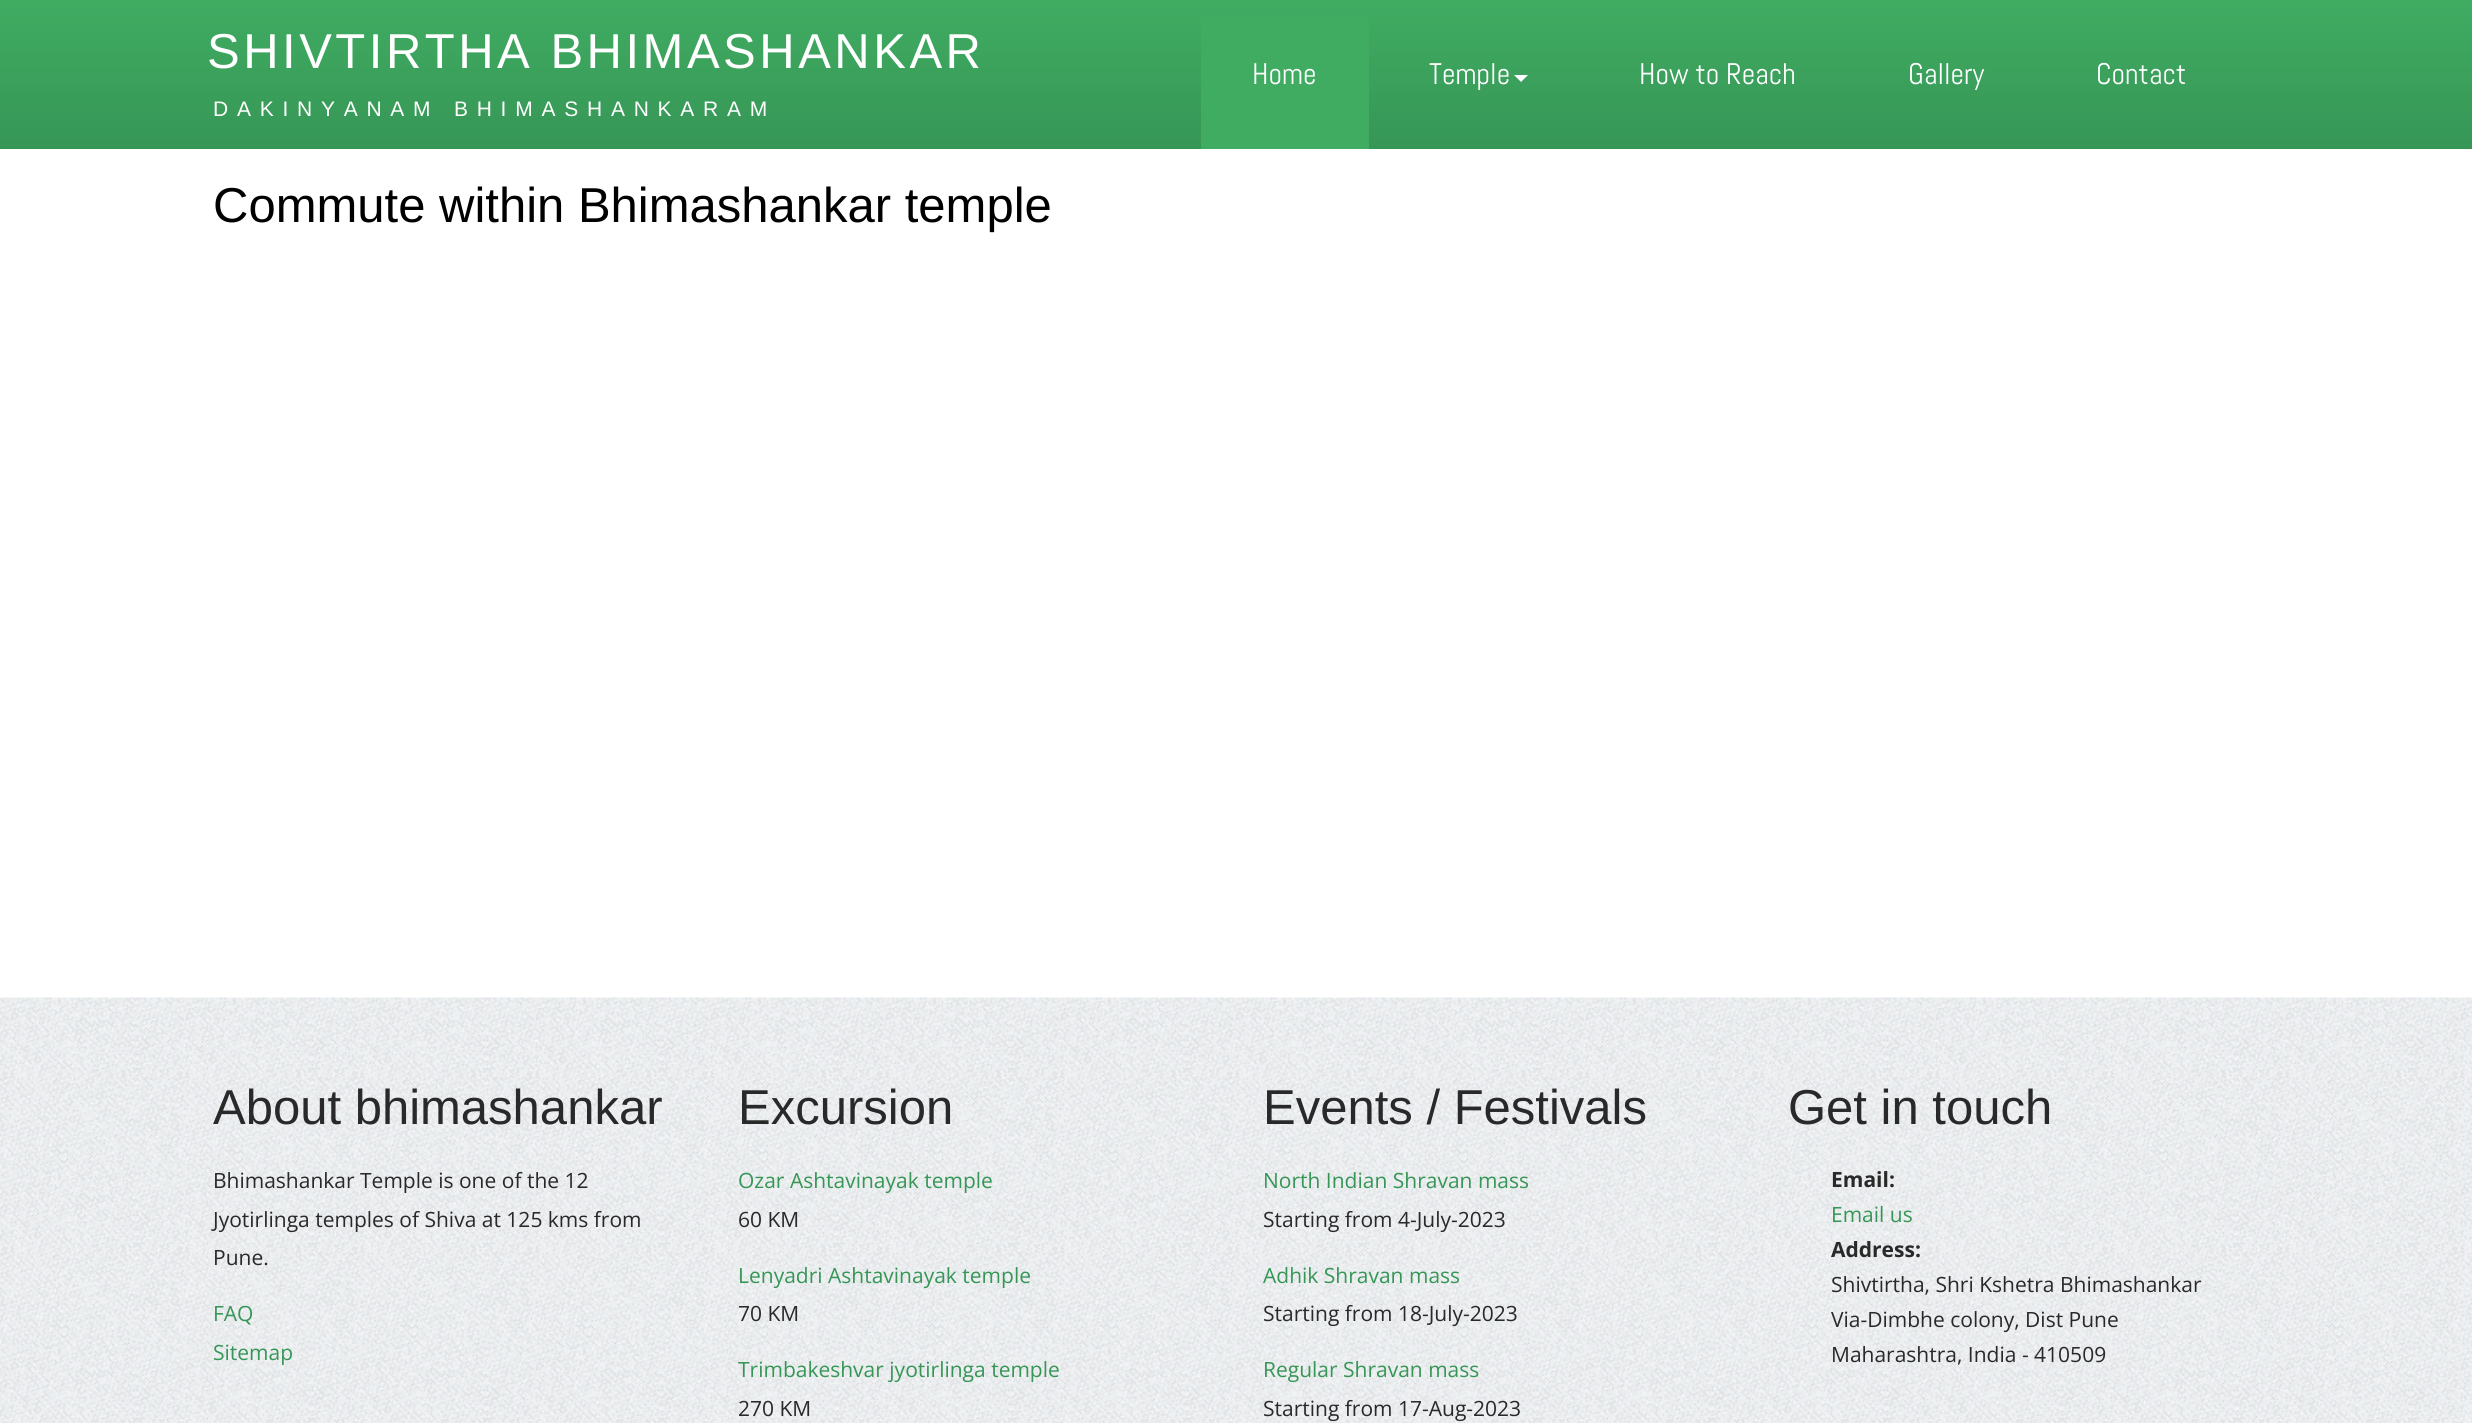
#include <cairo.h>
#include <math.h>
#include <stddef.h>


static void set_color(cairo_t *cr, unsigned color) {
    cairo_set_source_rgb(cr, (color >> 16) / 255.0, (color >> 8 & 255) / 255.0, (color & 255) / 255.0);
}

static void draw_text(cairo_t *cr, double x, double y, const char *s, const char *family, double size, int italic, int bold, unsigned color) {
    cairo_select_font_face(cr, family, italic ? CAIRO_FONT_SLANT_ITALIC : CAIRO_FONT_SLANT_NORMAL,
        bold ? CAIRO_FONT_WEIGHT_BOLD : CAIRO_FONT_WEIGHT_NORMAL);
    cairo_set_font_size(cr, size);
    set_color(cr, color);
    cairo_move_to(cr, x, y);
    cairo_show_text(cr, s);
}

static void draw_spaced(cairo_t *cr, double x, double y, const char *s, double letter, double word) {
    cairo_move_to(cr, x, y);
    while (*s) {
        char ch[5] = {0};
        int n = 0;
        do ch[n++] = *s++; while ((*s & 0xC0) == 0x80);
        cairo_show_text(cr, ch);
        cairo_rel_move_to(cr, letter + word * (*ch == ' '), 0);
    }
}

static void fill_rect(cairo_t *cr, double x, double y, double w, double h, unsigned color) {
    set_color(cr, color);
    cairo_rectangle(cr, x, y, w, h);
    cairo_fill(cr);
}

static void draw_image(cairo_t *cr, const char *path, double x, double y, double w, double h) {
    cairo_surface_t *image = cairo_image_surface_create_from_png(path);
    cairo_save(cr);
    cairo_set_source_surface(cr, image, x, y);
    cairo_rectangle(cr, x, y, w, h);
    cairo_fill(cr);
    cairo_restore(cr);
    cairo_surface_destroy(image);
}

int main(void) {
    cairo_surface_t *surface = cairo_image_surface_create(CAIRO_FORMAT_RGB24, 2472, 1423);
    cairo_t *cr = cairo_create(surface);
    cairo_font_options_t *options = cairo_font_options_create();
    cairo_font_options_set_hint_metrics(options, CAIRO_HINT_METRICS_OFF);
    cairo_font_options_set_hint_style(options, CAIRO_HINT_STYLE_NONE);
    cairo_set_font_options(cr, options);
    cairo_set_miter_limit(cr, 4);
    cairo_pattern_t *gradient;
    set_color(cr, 0xFFFFFF);
    cairo_paint(cr);
    gradient = cairo_pattern_create_linear(1236, 0, 1236, 149);
    cairo_pattern_add_color_stop_rgba(gradient, 0, 0.251, 0.675, 0.384, 1);
    cairo_pattern_add_color_stop_rgba(gradient, 1, 0.212, 0.588, 0.337, 1);
    cairo_set_source(cr, gradient);
    cairo_pattern_destroy(gradient);
    cairo_rectangle(cr, 0, 0, 2472, 149);
    cairo_fill(cr);
    cairo_select_font_face(cr, "Liberation Sans", CAIRO_FONT_SLANT_NORMAL, CAIRO_FONT_WEIGHT_NORMAL);
    cairo_set_font_size(cr, 49);
    set_color(cr, 0xFFFFFF);
    draw_spaced(cr, 207, 68, "SHIVTIRTHA BHIMASHANKAR", 3.5, 0);
    cairo_set_font_size(cr, 21);
    draw_spaced(cr, 213, 116, "DAKINYANAM BHIMASHANKARAM", 8.75, 0);
    fill_rect(cr, 1201, 17, 168, 132, 0x40AC62);
    draw_text(cr, 1252, 84, "Home", "Abel", 29.75, 0, 0, 0xFFFFFF);
    draw_text(cr, 1429, 84, "Temple", "Abel", 29.75, 0, 0, 0xFFFFFF);
    cairo_new_path(cr);
    cairo_move_to(cr, 1514, 75);
    cairo_line_to(cr, 1528, 75);
    cairo_line_to(cr, 1521, 82);
    cairo_close_path(cr);
    cairo_fill(cr);
    draw_text(cr, 1639, 84, "How to Reach", "Abel", 29.75, 0, 0, 0xFFFFFF);
    draw_text(cr, 1908, 84, "Gallery", "Abel", 29.75, 0, 0, 0xFFFFFF);
    draw_text(cr, 2096, 84, "Contact", "Abel", 29.75, 0, 0, 0xFFFFFF);
    draw_text(cr, 213, 222, "Commute within Bhimashankar temple", "Liberation Sans", 49, 0, 0, 0x000000);
    draw_image(cr, "assets/img1.png", 0, 997, 2472, 426);
    draw_text(cr, 213, 1124, "About bhimashankar", "Liberation Sans", 49, 0, 0, 0x292929);
    draw_text(cr, 213, 1188, "Bhimashankar Temple is one of the 12", "Open Sans", 21, 0, 0, 0x292929);
    draw_text(cr, 213, 1227, "Jyotirlinga temples of Shiva at 125 kms from", "Open Sans", 21, 0, 0, 0x292929);
    draw_text(cr, 213, 1265, "Pune.", "Open Sans", 21, 0, 0, 0x292929);
    draw_text(cr, 213, 1321, "FAQ", "Open Sans", 21, 0, 0, 0x369656);
    draw_text(cr, 213, 1360, "Sitemap", "Open Sans", 21, 0, 0, 0x369656);
    draw_text(cr, 738, 1124, "Excursion", "Liberation Sans", 49, 0, 0, 0x292929);
    draw_text(cr, 738, 1188, "Ozar Ashtavinayak temple", "Open Sans", 21, 0, 0, 0x369656);
    draw_text(cr, 738, 1227, "60 KM", "Open Sans", 21, 0, 0, 0x292929);
    draw_text(cr, 738, 1283, "Lenyadri Ashtavinayak temple", "Open Sans", 21, 0, 0, 0x369656);
    draw_text(cr, 738, 1321, "70 KM", "Open Sans", 21, 0, 0, 0x292929);
    draw_text(cr, 738, 1377, "Trimbakeshvar jyotirlinga temple", "Open Sans", 21, 0, 0, 0x369656);
    draw_text(cr, 738, 1416, "270 KM", "Open Sans", 21, 0, 0, 0x292929);
    draw_text(cr, 1263, 1124, "Events / Festivals", "Liberation Sans", 49, 0, 0, 0x292929);
    draw_text(cr, 1263, 1188, "North Indian Shravan mass", "Open Sans", 21, 0, 0, 0x369656);
    draw_text(cr, 1263, 1227, "Starting from 4-July-2023", "Open Sans", 21, 0, 0, 0x292929);
    draw_text(cr, 1263, 1283, "Adhik Shravan mass", "Open Sans", 21, 0, 0, 0x369656);
    draw_text(cr, 1263, 1321, "Starting from 18-July-2023", "Open Sans", 21, 0, 0, 0x292929);
    draw_text(cr, 1263, 1377, "Regular Shravan mass", "Open Sans", 21, 0, 0, 0x369656);
    draw_text(cr, 1263, 1416, "Starting from 17-Aug-2023", "Open Sans", 21, 0, 0, 0x292929);
    draw_text(cr, 1788, 1124, "Get in touch", "Liberation Sans", 49, 0, 0, 0x292929);
    draw_text(cr, 1831, 1187, "Email:", "Open Sans", 21, 0, 1, 0x292929);
    draw_text(cr, 1831, 1222, "Email us", "Open Sans", 21, 0, 0, 0x369656);
    draw_text(cr, 1831, 1257, "Address:", "Open Sans", 21, 0, 1, 0x292929);
    draw_text(cr, 1831, 1292, "Shivtirtha, Shri Kshetra Bhimashankar", "Open Sans", 21, 0, 0, 0x292929);
    draw_text(cr, 1831, 1327, "Via-Dimbhe colony, Dist Pune", "Open Sans", 21, 0, 0, 0x292929);
    draw_text(cr, 1831, 1362, "Maharashtra, India - 410509", "Open Sans", 21, 0, 0, 0x292929);
    cairo_surface_write_to_png(surface, "output.png");
    cairo_font_options_destroy(options);
    cairo_destroy(cr);
    cairo_surface_destroy(surface);
    return 0;
}
